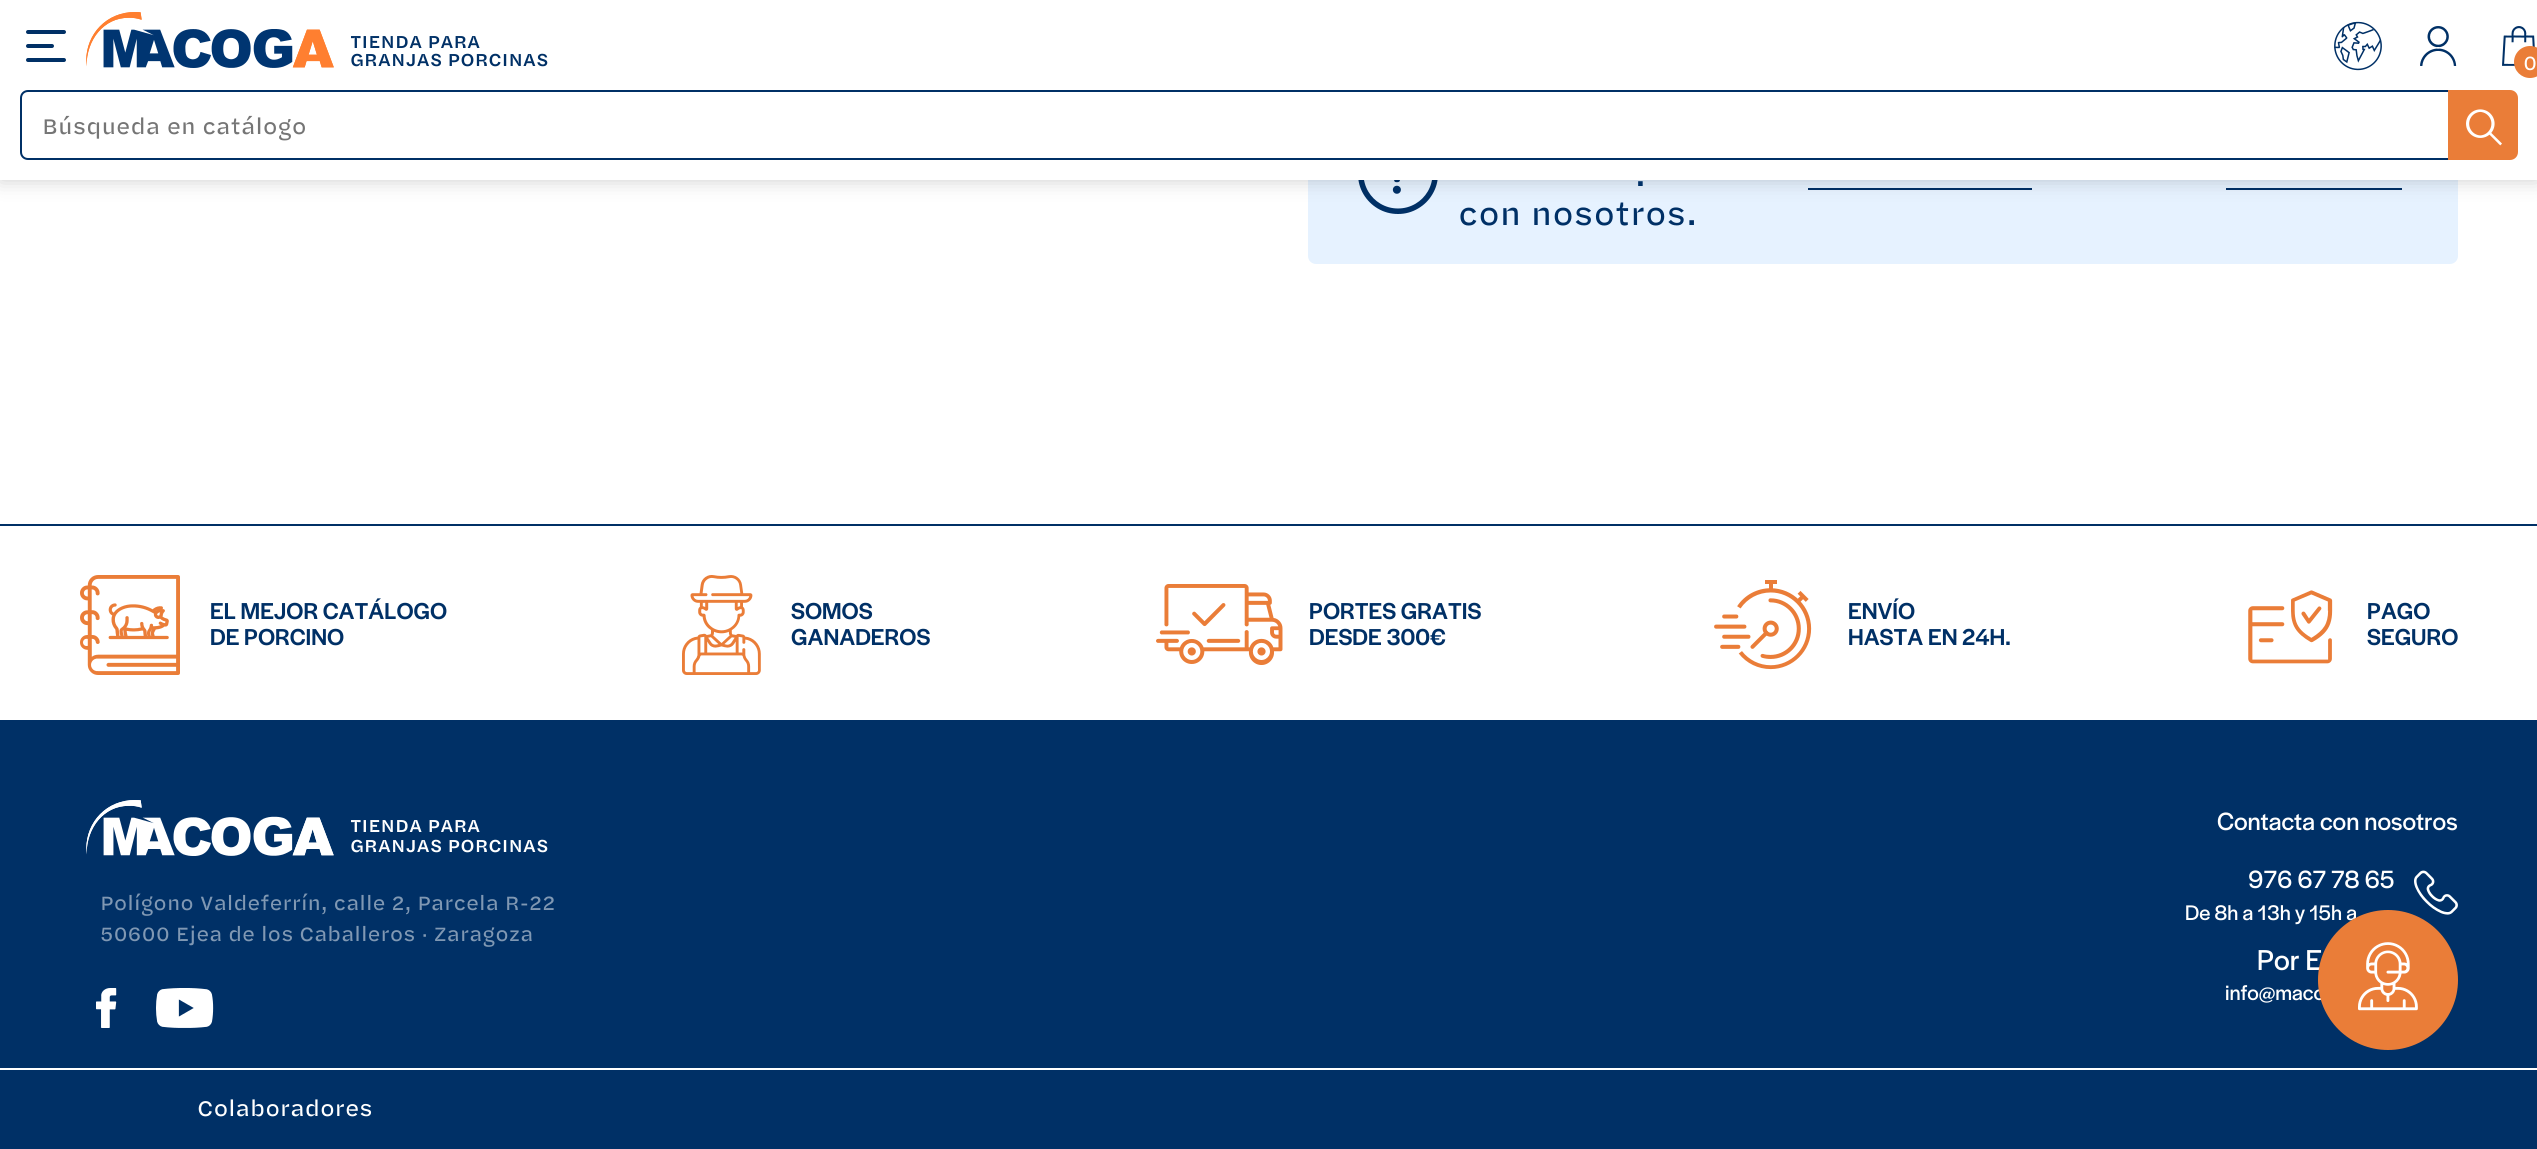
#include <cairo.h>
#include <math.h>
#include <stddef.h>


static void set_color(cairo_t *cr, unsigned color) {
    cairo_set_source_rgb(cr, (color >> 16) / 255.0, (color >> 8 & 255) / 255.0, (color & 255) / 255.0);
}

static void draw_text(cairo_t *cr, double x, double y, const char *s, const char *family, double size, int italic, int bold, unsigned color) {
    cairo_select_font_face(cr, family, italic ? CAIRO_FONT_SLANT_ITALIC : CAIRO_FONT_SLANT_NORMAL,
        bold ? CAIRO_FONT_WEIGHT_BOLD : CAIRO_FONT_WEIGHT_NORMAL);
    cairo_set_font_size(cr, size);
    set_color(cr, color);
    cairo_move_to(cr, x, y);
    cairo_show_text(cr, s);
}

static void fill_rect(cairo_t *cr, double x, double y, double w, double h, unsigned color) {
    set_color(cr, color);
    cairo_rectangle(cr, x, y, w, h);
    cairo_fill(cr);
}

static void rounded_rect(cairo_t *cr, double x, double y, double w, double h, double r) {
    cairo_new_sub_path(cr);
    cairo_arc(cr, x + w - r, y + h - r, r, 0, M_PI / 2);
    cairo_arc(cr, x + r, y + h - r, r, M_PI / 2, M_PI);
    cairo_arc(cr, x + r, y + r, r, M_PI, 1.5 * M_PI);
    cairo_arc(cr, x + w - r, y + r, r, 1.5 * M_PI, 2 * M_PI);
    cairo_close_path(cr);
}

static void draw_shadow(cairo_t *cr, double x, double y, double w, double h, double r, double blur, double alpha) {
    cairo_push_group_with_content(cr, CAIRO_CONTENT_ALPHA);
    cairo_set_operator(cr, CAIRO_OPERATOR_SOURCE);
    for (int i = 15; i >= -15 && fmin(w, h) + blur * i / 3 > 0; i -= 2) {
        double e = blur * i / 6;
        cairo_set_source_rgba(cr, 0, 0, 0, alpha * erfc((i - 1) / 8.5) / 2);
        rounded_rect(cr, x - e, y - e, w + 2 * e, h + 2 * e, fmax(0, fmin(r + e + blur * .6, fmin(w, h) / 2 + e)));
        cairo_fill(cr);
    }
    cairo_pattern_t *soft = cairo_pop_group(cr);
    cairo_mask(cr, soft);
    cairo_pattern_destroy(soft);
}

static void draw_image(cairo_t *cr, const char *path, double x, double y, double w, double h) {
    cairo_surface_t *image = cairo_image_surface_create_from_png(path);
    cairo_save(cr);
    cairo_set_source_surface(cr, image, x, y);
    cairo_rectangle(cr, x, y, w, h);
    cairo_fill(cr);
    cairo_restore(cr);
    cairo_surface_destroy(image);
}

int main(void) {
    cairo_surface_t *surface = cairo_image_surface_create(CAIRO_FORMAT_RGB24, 2537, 1149);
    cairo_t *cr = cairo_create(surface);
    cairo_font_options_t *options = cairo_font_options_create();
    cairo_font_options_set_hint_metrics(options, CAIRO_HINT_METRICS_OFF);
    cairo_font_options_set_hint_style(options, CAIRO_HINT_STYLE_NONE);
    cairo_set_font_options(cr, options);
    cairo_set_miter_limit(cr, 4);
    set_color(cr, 0xFFFFFF);
    cairo_paint(cr);
    set_color(cr, 0xE6F2FF);
    rounded_rect(cr, 1308, 82, 1150, 182, 8);
    cairo_fill(cr);
    draw_image(cr, "assets/img6.png", 1358, 180, 80, 34);
    fill_rect(cr, 1808, 188, 224, 2, 0x003066);
    fill_rect(cr, 2226, 188, 176, 2, 0x003066);
    set_color(cr, 0x000000);
    draw_shadow(cr, 0, 0, 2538, 180, 0, 10, 0.2);
    fill_rect(cr, 0, 0, 2537, 180, 0xFFFFFF);
    set_color(cr, 0x003066);
    rounded_rect(cr, 26, 30, 40, 4, 2);
    cairo_fill(cr);
    rounded_rect(cr, 26, 44, 28, 4, 2);
    cairo_fill(cr);
    rounded_rect(cr, 26, 58, 40, 4, 2);
    cairo_fill(cr);
    draw_image(cr, "assets/img1.png", 86, 12, 248, 56);
    draw_text(cr, 350, 48, "TIENDA PARA", "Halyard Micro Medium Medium", 18, 0, 0, 0x003066);
    draw_text(cr, 350, 66, "GRANJAS PORCINAS", "Halyard Micro Medium Medium", 18, 0, 0, 0x003066);
    draw_image(cr, "assets/img2.png", 2334, 21, 48, 50);
    draw_image(cr, "assets/img3.png", 2420, 26, 37, 40);
    draw_image(cr, "assets/img4.png", 2502, 26, 33, 40);
    set_color(cr, 0xEA7D38);
    cairo_arc(cr, 2530, 62, 16, 0, 2 * M_PI);
    cairo_fill(cr);
    draw_text(cr, 2524, 70, "0", "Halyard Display", 20, 0, 0, 0xFFFFFF);
    cairo_new_path(cr);
    cairo_move_to(cr, 28, 91);
    cairo_line_to(cr, 2451, 91);
    cairo_line_to(cr, 2451, 159);
    cairo_line_to(cr, 28, 159);
    cairo_curve_to(cr, 24, 159, 21, 156, 21, 152);
    cairo_line_to(cr, 21, 98);
    cairo_curve_to(cr, 21, 94, 24, 91, 28, 91);
    cairo_close_path(cr);
    set_color(cr, 0x003066);
    cairo_stroke(cr);
    draw_text(cr, 42, 134, "Búsqueda en catálogo", "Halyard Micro", 22, 0, 0, 0x757575);
    set_color(cr, 0xEA7D38);
    cairo_new_path(cr);
    cairo_move_to(cr, 2448, 90);
    cairo_line_to(cr, 2510, 90);
    cairo_curve_to(cr, 2514.5, 90, 2518, 93.5, 2518, 98);
    cairo_line_to(cr, 2518, 152);
    cairo_curve_to(cr, 2518, 156.5, 2514.5, 160, 2510, 160);
    cairo_line_to(cr, 2448, 160);
    cairo_close_path(cr);
    cairo_fill(cr);
    draw_image(cr, "assets/img5.png", 2466, 109, 36, 37);
    draw_text(cr, 1635, 186, ".", "Halyard Micro", 32, 0, 0, 0x003066);
    draw_text(cr, 1458, 225, "con nosotros.", "Halyard Micro", 32, 0, 0, 0x003066);
    fill_rect(cr, 0, 524, 2537, 2, 0x003066);
    draw_image(cr, "assets/img7.png", 80, 575, 100, 100);
    draw_text(cr, 210, 619, "EL MEJOR CATÁLOGO", "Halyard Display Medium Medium", 24, 0, 0, 0x003066);
    draw_text(cr, 210, 645, "DE PORCINO", "Halyard Display Medium Medium", 24, 0, 0, 0x003066);
    draw_image(cr, "assets/img8.png", 682, 575, 79, 100);
    draw_text(cr, 791, 619, "SOMOS", "Halyard Display Medium Medium", 24, 0, 0, 0x003066);
    draw_text(cr, 791, 645, "GANADEROS", "Halyard Display Medium Medium", 24, 0, 0, 0x003066);
    draw_image(cr, "assets/img9.png", 1156, 584, 127, 81);
    draw_text(cr, 1309, 619, "PORTES GRATIS", "Halyard Display Medium Medium", 24, 0, 0, 0x003066);
    draw_text(cr, 1309, 645, "DESDE 300€", "Halyard Display Medium Medium", 24, 0, 0, 0x003066);
    draw_image(cr, "assets/img10.png", 1714, 580, 98, 90);
    draw_text(cr, 1848, 619, "ENVÍO", "Halyard Display Medium Medium", 24, 0, 0, 0x003066);
    draw_text(cr, 1848, 645, "HASTA EN 24H.", "Halyard Display Medium Medium", 24, 0, 0, 0x003066);
    draw_image(cr, "assets/img11.png", 2248, 590, 85, 74);
    draw_text(cr, 2367, 619, "PAGO", "Halyard Display Medium Medium", 24, 0, 0, 0x003066);
    draw_text(cr, 2367, 645, "SEGURO", "Halyard Display Medium Medium", 24, 0, 0, 0x003066);
    fill_rect(cr, 0, 720, 2537, 429, 0x003066);
    fill_rect(cr, 0, 1068, 2537, 2, 0xFFFFFF);
    draw_image(cr, "assets/img12.png", 86, 800, 248, 56);
    draw_text(cr, 350, 832, "TIENDA PARA", "Halyard Micro Medium Medium", 18, 0, 0, 0xFFFFFF);
    draw_text(cr, 350, 852, "GRANJAS PORCINAS", "Halyard Micro Medium Medium", 18, 0, 0, 0xFFFFFF);
    draw_text(cr, 100, 910, "Polígono Valdeferrín, calle 2, Parcela R-22", "Halyard Micro", 20, 0, 0, 0x8098B3);
    draw_text(cr, 100, 941, "50600 Ejea de los Caballeros · Zaragoza", "Halyard Micro", 20, 0, 0, 0x8098B3);
    draw_image(cr, "assets/img13.png", 96, 988, 21, 40);
    draw_image(cr, "assets/img14.png", 156, 988, 58, 40);
    draw_text(cr, 2217, 830, "Contacta con nosotros", "Halyard Display", 26, 0, 0, 0xFFFFFF);
    draw_text(cr, 2248, 888, "976 67 78 65", "Halyard Display", 26, 0, 0, 0xFFFFFF);
    draw_text(cr, 2185, 920, "De 8h a 13h y 15h a", "Halyard Display", 22, 0, 0, 0xFFFFFF);
    draw_image(cr, "assets/img15.png", 2414, 870, 44, 45);
    draw_text(cr, 2257, 970, "Por E", "Halyard Display", 30, 0, 0, 0xFFFFFF);
    draw_text(cr, 2225, 1000, "info@maco", "Halyard Display", 22, 0, 0, 0xFFFFFF);
    draw_text(cr, 197, 1116, "Colaboradores", "Halyard Micro", 22, 0, 0, 0xFFFFFF);
    set_color(cr, 0xEA7D38);
    cairo_new_path(cr);
    cairo_arc(cr, 2388, 980, 70, 0, 2 * M_PI);
    cairo_fill(cr);
    draw_image(cr, "assets/img16.png", 2358, 942, 60, 69);
    cairo_surface_write_to_png(surface, "output.png");
    cairo_font_options_destroy(options);
    cairo_destroy(cr);
    cairo_surface_destroy(surface);
    return 0;
}
